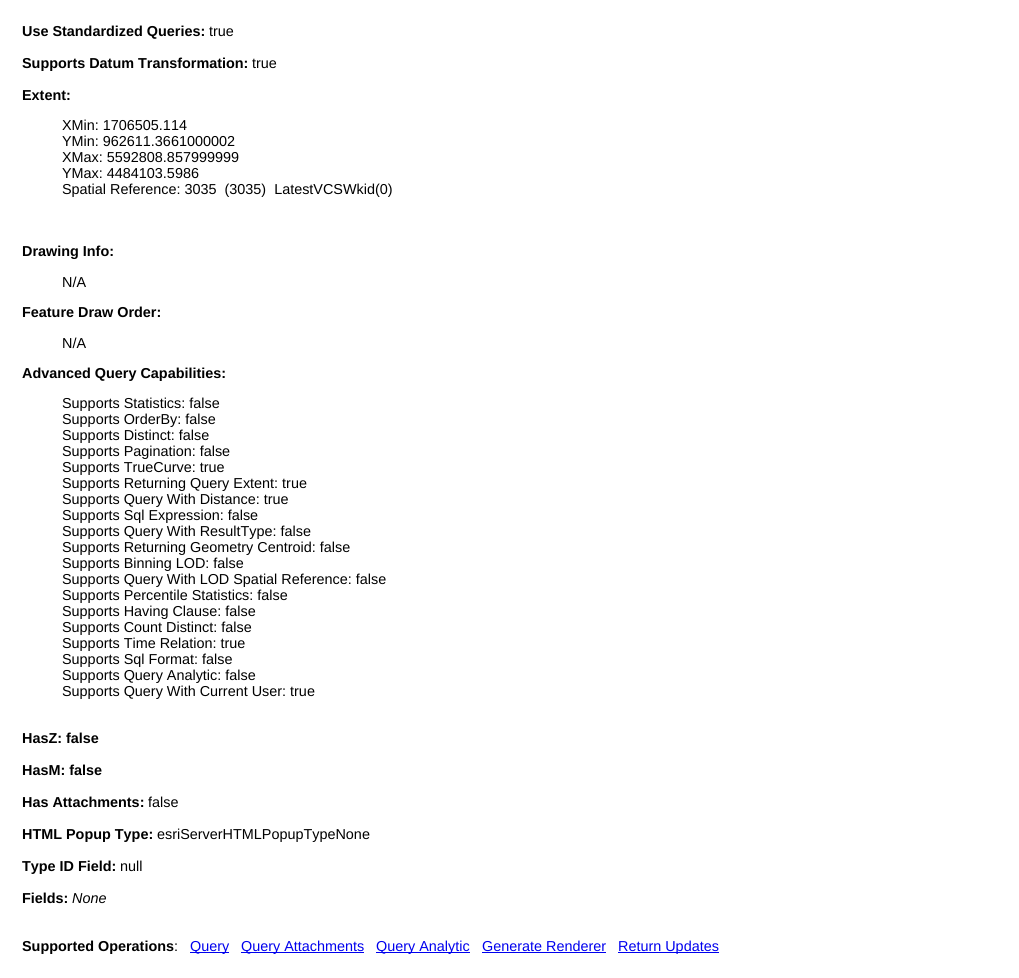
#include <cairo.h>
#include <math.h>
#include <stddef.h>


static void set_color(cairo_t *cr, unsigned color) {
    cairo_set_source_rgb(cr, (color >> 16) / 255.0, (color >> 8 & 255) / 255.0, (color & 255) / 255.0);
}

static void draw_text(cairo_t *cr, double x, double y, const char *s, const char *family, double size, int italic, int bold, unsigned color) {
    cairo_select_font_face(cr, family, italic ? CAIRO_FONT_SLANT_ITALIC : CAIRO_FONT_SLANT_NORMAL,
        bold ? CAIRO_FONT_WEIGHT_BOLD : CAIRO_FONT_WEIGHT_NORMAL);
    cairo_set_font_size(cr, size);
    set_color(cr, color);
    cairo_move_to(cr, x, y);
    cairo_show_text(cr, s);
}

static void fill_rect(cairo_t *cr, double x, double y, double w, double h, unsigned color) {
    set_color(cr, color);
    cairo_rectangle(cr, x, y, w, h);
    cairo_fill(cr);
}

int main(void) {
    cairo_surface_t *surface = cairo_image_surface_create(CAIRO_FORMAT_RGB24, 1019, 978);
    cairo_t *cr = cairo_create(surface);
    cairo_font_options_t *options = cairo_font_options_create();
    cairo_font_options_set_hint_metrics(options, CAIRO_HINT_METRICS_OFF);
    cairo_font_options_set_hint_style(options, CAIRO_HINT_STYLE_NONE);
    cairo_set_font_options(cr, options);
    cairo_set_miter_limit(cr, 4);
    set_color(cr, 0xFFFFFF);
    cairo_paint(cr);
    draw_text(cr, 22, 36, "Use Standardized Queries:", "Liberation Sans", 14.4, 0, 1, 0x000000);
    draw_text(cr, 209, 36, "true", "Liberation Sans", 14.4, 0, 0, 0x000000);
    draw_text(cr, 22, 68, "Supports Datum Transformation:", "Liberation Sans", 14.4, 0, 1, 0x000000);
    draw_text(cr, 252, 68, "true", "Liberation Sans", 14.4, 0, 0, 0x000000);
    draw_text(cr, 22, 100, "Extent:", "Liberation Sans", 14.4, 0, 1, 0x000000);
    draw_text(cr, 62, 130, "XMin: 1706505.114", "Liberation Sans", 14.4, 0, 0, 0x000000);
    draw_text(cr, 62, 146, "YMin: 962611.3661000002", "Liberation Sans", 14.4, 0, 0, 0x000000);
    draw_text(cr, 62, 162, "XMax: 5592808.857999999", "Liberation Sans", 14.4, 0, 0, 0x000000);
    draw_text(cr, 62, 178, "YMax: 4484103.5986", "Liberation Sans", 14.4, 0, 0, 0x000000);
    draw_text(cr, 62, 194, "Spatial Reference: 3035  (3035)  LatestVCSWkid(0)", "Liberation Sans", 14.4, 0, 0, 0x000000);
    draw_text(cr, 22, 256, "Drawing Info:", "Liberation Sans", 14.4, 0, 1, 0x000000);
    draw_text(cr, 62, 287, "N/A", "Liberation Sans", 14.4, 0, 0, 0x000000);
    draw_text(cr, 22, 317, "Feature Draw Order:", "Liberation Sans", 14.4, 0, 1, 0x000000);
    draw_text(cr, 62, 348, "N/A", "Liberation Sans", 14.4, 0, 0, 0x000000);
    draw_text(cr, 22, 378, "Advanced Query Capabilities:", "Liberation Sans", 14.4, 0, 1, 0x000000);
    draw_text(cr, 62, 408, "Supports Statistics: false", "Liberation Sans", 14.4, 0, 0, 0x000000);
    draw_text(cr, 62, 424, "Supports OrderBy: false", "Liberation Sans", 14.4, 0, 0, 0x000000);
    draw_text(cr, 62, 440, "Supports Distinct: false", "Liberation Sans", 14.4, 0, 0, 0x000000);
    draw_text(cr, 62, 456, "Supports Pagination: false", "Liberation Sans", 14.4, 0, 0, 0x000000);
    draw_text(cr, 62, 472, "Supports TrueCurve: true", "Liberation Sans", 14.4, 0, 0, 0x000000);
    draw_text(cr, 62, 488, "Supports Returning Query Extent: true", "Liberation Sans", 14.4, 0, 0, 0x000000);
    draw_text(cr, 62, 504, "Supports Query With Distance: true", "Liberation Sans", 14.4, 0, 0, 0x000000);
    draw_text(cr, 62, 520, "Supports Sql Expression: false", "Liberation Sans", 14.4, 0, 0, 0x000000);
    draw_text(cr, 62, 536, "Supports Query With ResultType: false", "Liberation Sans", 14.4, 0, 0, 0x000000);
    draw_text(cr, 62, 552, "Supports Returning Geometry Centroid: false", "Liberation Sans", 14.4, 0, 0, 0x000000);
    draw_text(cr, 62, 568, "Supports Binning LOD: false", "Liberation Sans", 14.4, 0, 0, 0x000000);
    draw_text(cr, 62, 584, "Supports Query With LOD Spatial Reference: false", "Liberation Sans", 14.4, 0, 0, 0x000000);
    draw_text(cr, 62, 600, "Supports Percentile Statistics: false", "Liberation Sans", 14.4, 0, 0, 0x000000);
    draw_text(cr, 62, 616, "Supports Having Clause: false", "Liberation Sans", 14.4, 0, 0, 0x000000);
    draw_text(cr, 62, 632, "Supports Count Distinct: false", "Liberation Sans", 14.4, 0, 0, 0x000000);
    draw_text(cr, 62, 648, "Supports Time Relation: true", "Liberation Sans", 14.4, 0, 0, 0x000000);
    draw_text(cr, 62, 664, "Supports Sql Format: false", "Liberation Sans", 14.4, 0, 0, 0x000000);
    draw_text(cr, 62, 680, "Supports Query Analytic: false", "Liberation Sans", 14.4, 0, 0, 0x000000);
    draw_text(cr, 62, 696, "Supports Query With Current User: true", "Liberation Sans", 14.4, 0, 0, 0x000000);
    draw_text(cr, 22, 743, "HasZ: false", "Liberation Sans", 14.4, 0, 1, 0x000000);
    draw_text(cr, 22, 775, "HasM: false", "Liberation Sans", 14.4, 0, 1, 0x000000);
    draw_text(cr, 22, 807, "Has Attachments:", "Liberation Sans", 14.4, 0, 1, 0x000000);
    draw_text(cr, 148, 807, "false", "Liberation Sans", 14.4, 0, 0, 0x000000);
    draw_text(cr, 22, 839, "HTML Popup Type:", "Liberation Sans", 14.4, 0, 1, 0x000000);
    draw_text(cr, 157, 839, "esriServerHTMLPopupTypeNone", "Liberation Sans", 14.4, 0, 0, 0x000000);
    draw_text(cr, 22, 871, "Type ID Field:", "Liberation Sans", 14.4, 0, 1, 0x000000);
    draw_text(cr, 120, 871, "null", "Liberation Sans", 14.4, 0, 0, 0x000000);
    draw_text(cr, 22, 903, "Fields:", "Liberation Sans", 14.4, 0, 1, 0x000000);
    draw_text(cr, 72, 903, "None", "Liberation Sans", 14.4, 1, 0, 0x000000);
    draw_text(cr, 22, 951, "Supported Operations", "Liberation Sans", 14.4, 0, 1, 0x000000);
    draw_text(cr, 174, 951, ":", "Liberation Sans", 14.4, 0, 0, 0x000000);
    fill_rect(cr, 190, 952, 39, 1, 0x0000EE);
    draw_text(cr, 190, 951, "Query", "Liberation Sans", 14.4, 0, 0, 0x0000EE);
    fill_rect(cr, 241, 952, 123, 1, 0x0000EE);
    draw_text(cr, 241, 951, "Query Attachments", "Liberation Sans", 14.4, 0, 0, 0x0000EE);
    fill_rect(cr, 376, 952, 94, 1, 0x0000EE);
    draw_text(cr, 376, 951, "Query Analytic", "Liberation Sans", 14.4, 0, 0, 0x0000EE);
    draw_text(cr, 482, 951, "Generate Renderer", "Liberation Sans", 14.4, 0, 0, 0x0000EE);
    fill_rect(cr, 482, 952, 124, 1, 0x0000EE);
    fill_rect(cr, 618, 952, 101, 1, 0x0000EE);
    draw_text(cr, 618, 951, "Return Updates", "Liberation Sans", 14.4, 0, 0, 0x0000EE);
    cairo_surface_write_to_png(surface, "output.png");
    cairo_font_options_destroy(options);
    cairo_destroy(cr);
    cairo_surface_destroy(surface);
    return 0;
}
